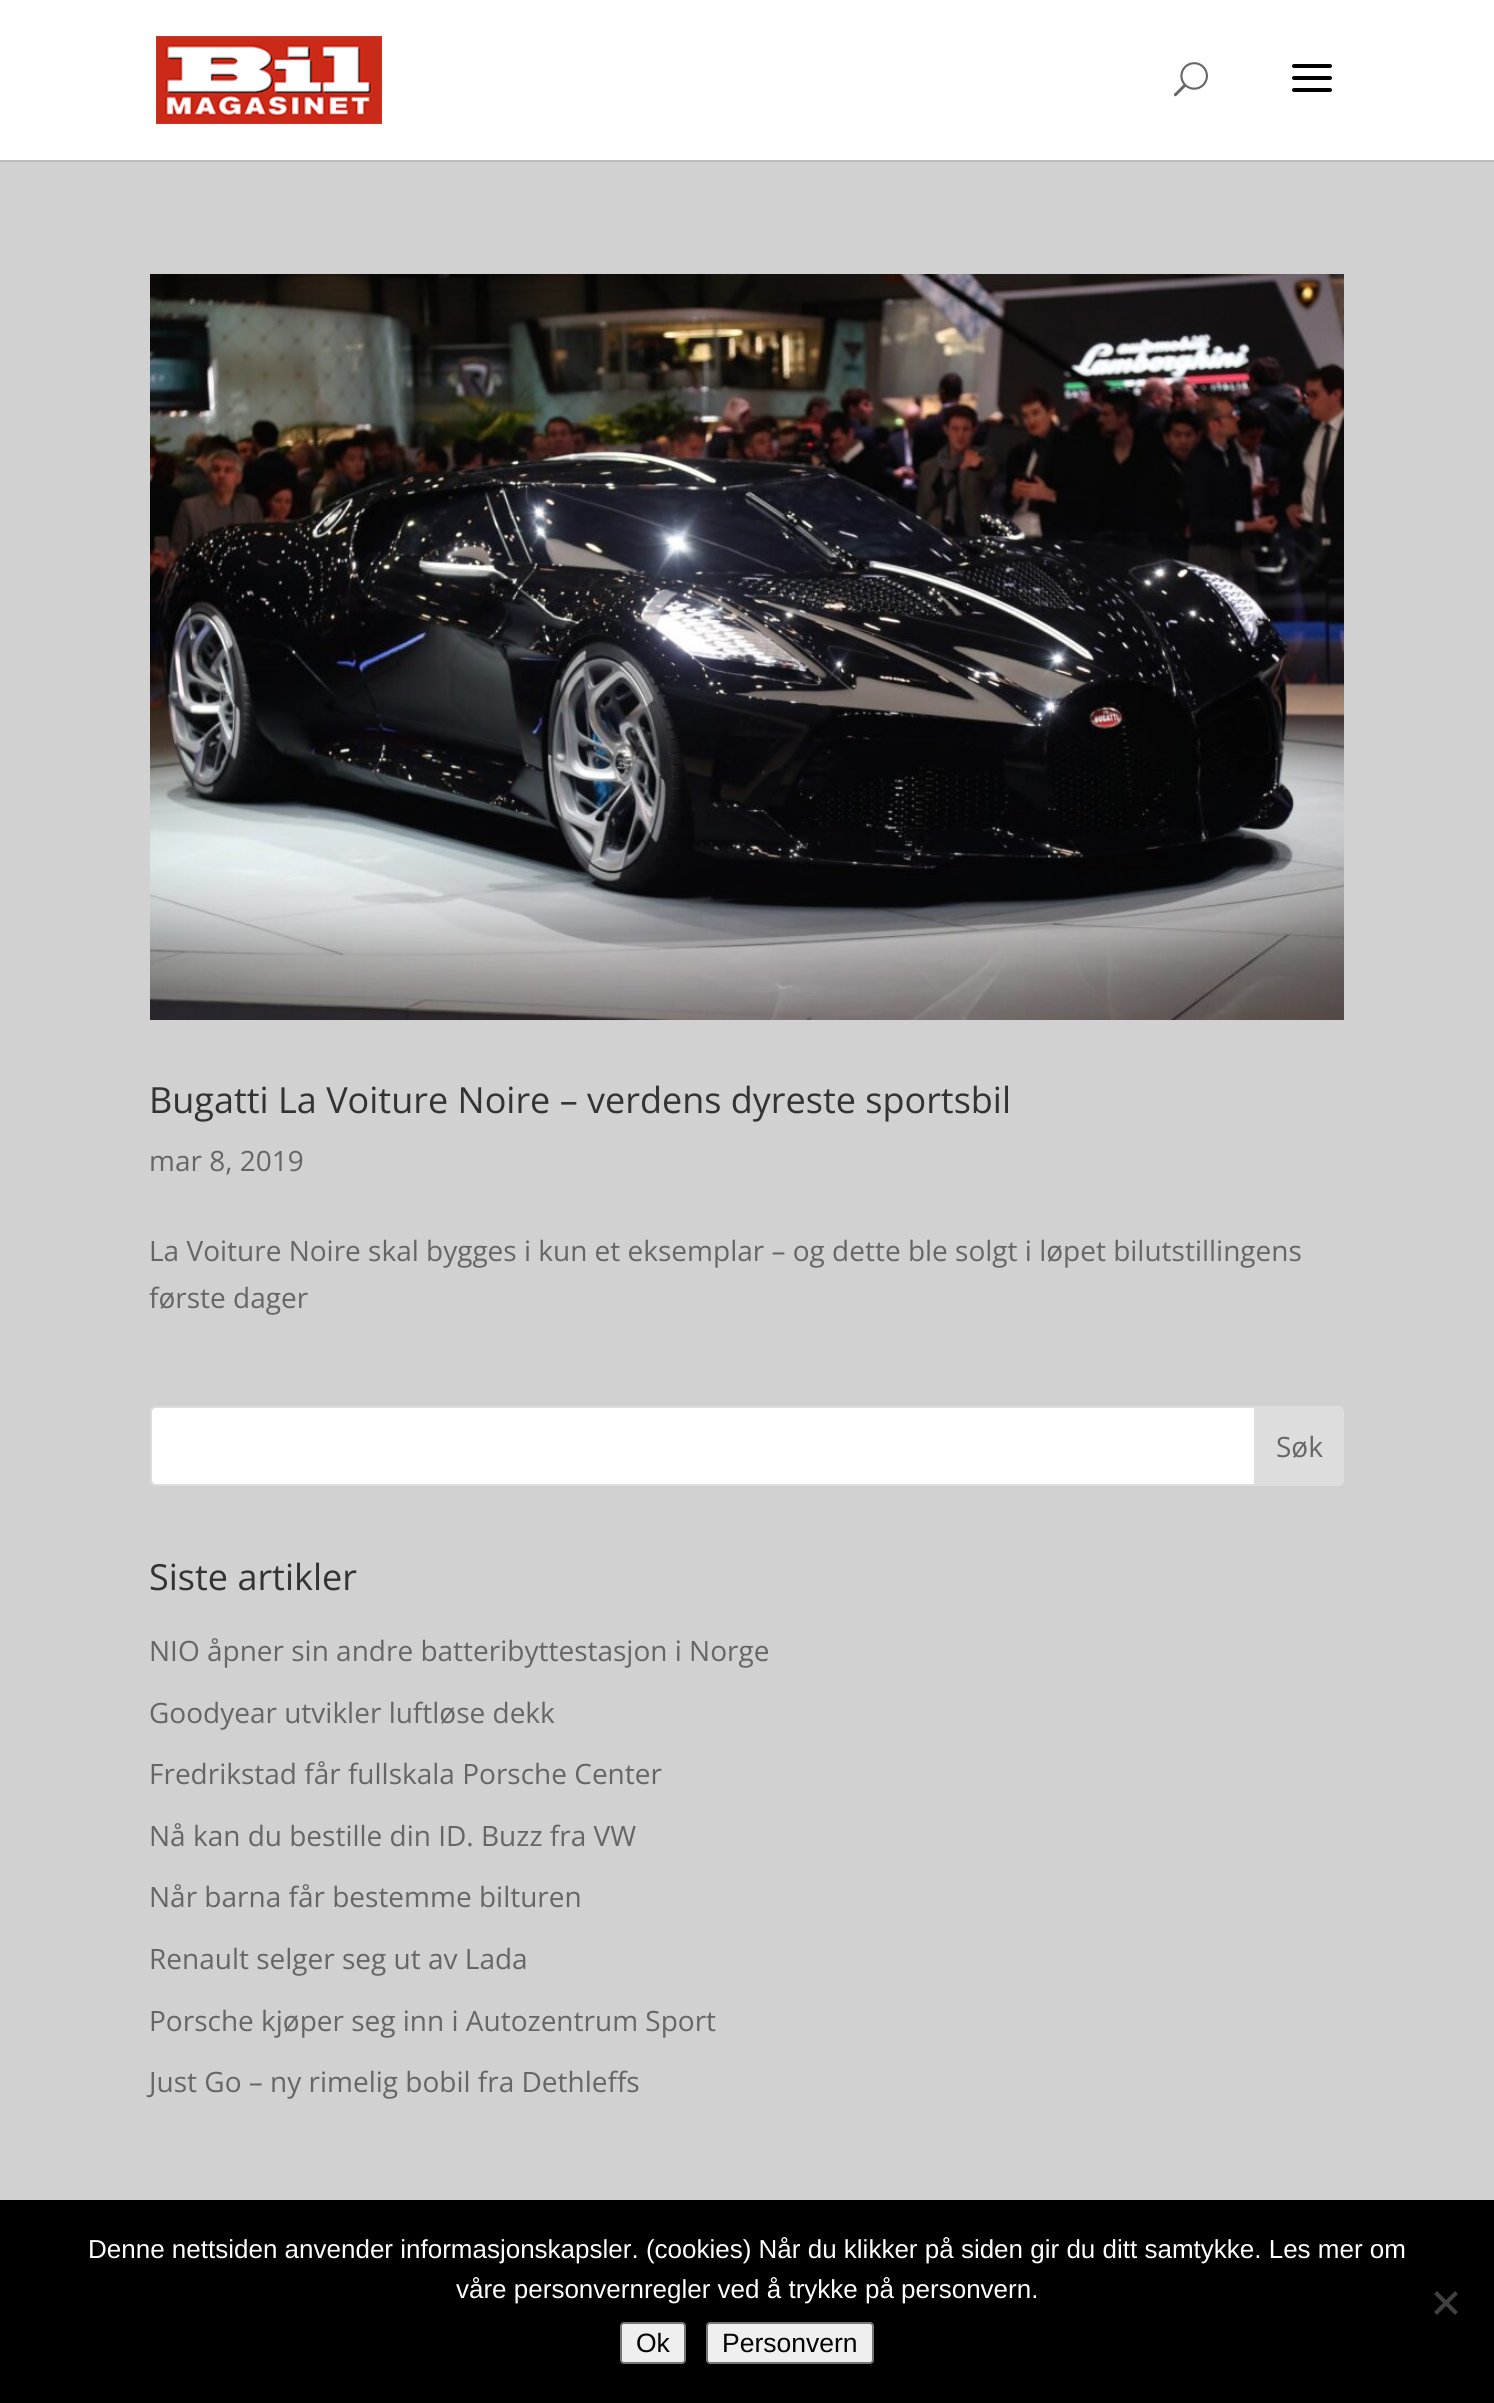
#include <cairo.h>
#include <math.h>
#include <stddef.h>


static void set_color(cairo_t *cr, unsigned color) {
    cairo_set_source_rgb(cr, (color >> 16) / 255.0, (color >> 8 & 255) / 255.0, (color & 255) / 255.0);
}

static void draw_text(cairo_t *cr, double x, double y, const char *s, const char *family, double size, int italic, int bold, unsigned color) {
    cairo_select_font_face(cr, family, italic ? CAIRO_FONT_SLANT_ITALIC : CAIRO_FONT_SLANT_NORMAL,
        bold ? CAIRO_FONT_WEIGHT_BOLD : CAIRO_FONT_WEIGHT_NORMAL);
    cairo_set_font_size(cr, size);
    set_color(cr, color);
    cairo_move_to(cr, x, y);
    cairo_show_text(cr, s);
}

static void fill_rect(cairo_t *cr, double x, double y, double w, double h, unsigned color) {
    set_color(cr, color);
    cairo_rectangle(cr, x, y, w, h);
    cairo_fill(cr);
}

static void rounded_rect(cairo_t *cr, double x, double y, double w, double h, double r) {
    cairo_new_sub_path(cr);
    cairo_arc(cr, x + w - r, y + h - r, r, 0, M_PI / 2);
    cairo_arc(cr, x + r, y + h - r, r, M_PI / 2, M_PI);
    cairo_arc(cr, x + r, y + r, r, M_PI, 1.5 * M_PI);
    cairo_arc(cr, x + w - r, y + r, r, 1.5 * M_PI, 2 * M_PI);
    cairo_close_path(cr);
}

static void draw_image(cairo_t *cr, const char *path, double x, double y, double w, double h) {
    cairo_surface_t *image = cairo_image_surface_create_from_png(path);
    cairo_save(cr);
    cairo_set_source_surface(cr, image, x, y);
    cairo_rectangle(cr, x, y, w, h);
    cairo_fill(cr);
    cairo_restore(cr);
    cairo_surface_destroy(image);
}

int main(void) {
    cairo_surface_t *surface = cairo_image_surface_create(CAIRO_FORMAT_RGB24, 1494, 2403);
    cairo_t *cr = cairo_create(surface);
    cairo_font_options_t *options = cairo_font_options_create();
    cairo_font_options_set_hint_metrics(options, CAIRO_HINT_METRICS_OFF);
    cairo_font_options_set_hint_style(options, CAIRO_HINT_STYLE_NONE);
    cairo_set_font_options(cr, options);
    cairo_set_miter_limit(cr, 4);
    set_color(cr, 0xD1D1D1);
    cairo_paint(cr);
    fill_rect(cr, 0, 160, 1494, 2, 0xBCBCBC);
    fill_rect(cr, 0, 0, 1494, 160, 0xFFFFFF);
    draw_image(cr, "assets/img1.png", 156, 36, 226, 88);
    draw_image(cr, "assets/img2.png", 1173, 62, 35, 35);
    draw_image(cr, "assets/img3.png", 1292, 64, 40, 28);
    draw_image(cr, "assets/img4.png", 150, 274, 1194, 746);
    draw_text(cr, 149, 1113, "Bugatti La Voiture Noire – verdens dyreste sportsbil", "Open Sans", 36, 0, 0, 0x333333);
    draw_text(cr, 149, 1171, "mar 8, 2019", "Open Sans", 28, 0, 0, 0x666666);
    draw_text(cr, 149, 1261, "La Voiture Noire skal bygges i kun et eksemplar – og dette ble solgt i løpet bilutstillingens", "Open Sans", 28, 0, 0, 0x666666);
    draw_text(cr, 149, 1308, "første dager", "Open Sans", 28, 0, 0, 0x666666);
    set_color(cr, 0xFFFFFF);
    rounded_rect(cr, 151, 1407, 1192, 78, 5);
    cairo_fill_preserve(cr);
    set_color(cr, 0xDDDDDD);
    cairo_stroke(cr);
    cairo_new_path(cr);
    cairo_move_to(cr, 1254, 1406);
    cairo_line_to(cr, 1338, 1406);
    cairo_curve_to(cr, 1341.5, 1406, 1344, 1408.5, 1344, 1412);
    cairo_line_to(cr, 1344, 1480);
    cairo_curve_to(cr, 1344, 1483.5, 1341.5, 1486, 1338, 1486);
    cairo_line_to(cr, 1254, 1486);
    cairo_close_path(cr);
    cairo_fill(cr);
    draw_text(cr, 1276, 1457, "Søk", "Open Sans", 28, 0, 0, 0x666666);
    draw_text(cr, 149, 1590, "Siste artikler", "Open Sans", 36, 0, 0, 0x333333);
    draw_text(cr, 149, 1661, "NIO åpner sin andre batteribyttestasjon i Norge", "Open Sans", 28, 0, 0, 0x666666);
    draw_text(cr, 149, 1723, "Goodyear utvikler luftløse dekk", "Open Sans", 28, 0, 0, 0x666666);
    draw_text(cr, 149, 1784, "Fredrikstad får fullskala Porsche Center", "Open Sans", 28, 0, 0, 0x666666);
    draw_text(cr, 149, 1846, "Nå kan du bestille din ID. Buzz fra VW", "Open Sans", 28, 0, 0, 0x666666);
    draw_text(cr, 149, 1907, "Når barna får bestemme bilturen", "Open Sans", 28, 0, 0, 0x666666);
    draw_text(cr, 149, 1969, "Renault selger seg ut av Lada", "Open Sans", 28, 0, 0, 0x666666);
    draw_text(cr, 149, 2031, "Porsche kjøper seg inn i Autozentrum Sport", "Open Sans", 28, 0, 0, 0x666666);
    draw_text(cr, 149, 2092, "Just Go – ny rimelig bobil fra Dethleffs", "Open Sans", 28, 0, 0, 0x666666);
    fill_rect(cr, 0, 2200, 1494, 203, 0x000000);
    draw_text(cr, 88, 2258, "Denne nettsiden anvender informasjonskapsler. (cookies) Når du klikker på siden gir du ditt samtykke. Les mer om", "Liberation Sans", 26, 0, 0, 0xFFFFFF);
    draw_text(cr, 456, 2298, "våre personvernregler ved å trykke på personvern.", "Liberation Sans", 26, 0, 0, 0xFFFFFF);
    set_color(cr, 0x404040);
    cairo_new_path(cr);
    cairo_move_to(cr, 1455, 2291);
    cairo_line_to(cr, 1458, 2294);
    cairo_line_to(cr, 1437, 2315);
    cairo_line_to(cr, 1434, 2312);
    cairo_close_path(cr);
    cairo_fill(cr);
    cairo_new_path(cr);
    cairo_move_to(cr, 1434, 2294);
    cairo_line_to(cr, 1437, 2291);
    cairo_line_to(cr, 1458, 2312);
    cairo_line_to(cr, 1455, 2315);
    cairo_close_path(cr);
    cairo_fill(cr);
    set_color(cr, 0xEFEFEF);
    rounded_rect(cr, 621, 2323, 64, 40, 3);
    cairo_fill_preserve(cr);
    set_color(cr, 0x767676);
    cairo_stroke(cr);
    draw_text(cr, 636, 2352, "Ok", "Liberation Sans", 26.5, 0, 0, 0x000000);
    set_color(cr, 0xEFEFEF);
    rounded_rect(cr, 707, 2323, 166, 40, 3);
    cairo_fill_preserve(cr);
    set_color(cr, 0x767676);
    cairo_stroke(cr);
    draw_text(cr, 722, 2352, "Personvern", "Liberation Sans", 26.5, 0, 0, 0x000000);
    cairo_surface_write_to_png(surface, "output.png");
    cairo_font_options_destroy(options);
    cairo_destroy(cr);
    cairo_surface_destroy(surface);
    return 0;
}
